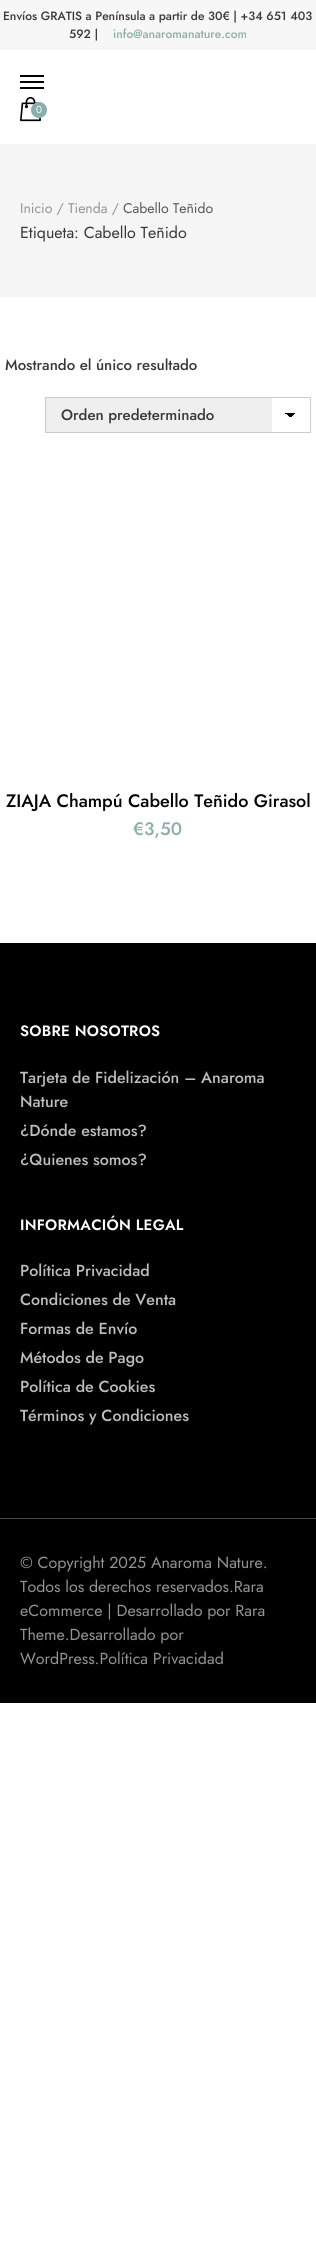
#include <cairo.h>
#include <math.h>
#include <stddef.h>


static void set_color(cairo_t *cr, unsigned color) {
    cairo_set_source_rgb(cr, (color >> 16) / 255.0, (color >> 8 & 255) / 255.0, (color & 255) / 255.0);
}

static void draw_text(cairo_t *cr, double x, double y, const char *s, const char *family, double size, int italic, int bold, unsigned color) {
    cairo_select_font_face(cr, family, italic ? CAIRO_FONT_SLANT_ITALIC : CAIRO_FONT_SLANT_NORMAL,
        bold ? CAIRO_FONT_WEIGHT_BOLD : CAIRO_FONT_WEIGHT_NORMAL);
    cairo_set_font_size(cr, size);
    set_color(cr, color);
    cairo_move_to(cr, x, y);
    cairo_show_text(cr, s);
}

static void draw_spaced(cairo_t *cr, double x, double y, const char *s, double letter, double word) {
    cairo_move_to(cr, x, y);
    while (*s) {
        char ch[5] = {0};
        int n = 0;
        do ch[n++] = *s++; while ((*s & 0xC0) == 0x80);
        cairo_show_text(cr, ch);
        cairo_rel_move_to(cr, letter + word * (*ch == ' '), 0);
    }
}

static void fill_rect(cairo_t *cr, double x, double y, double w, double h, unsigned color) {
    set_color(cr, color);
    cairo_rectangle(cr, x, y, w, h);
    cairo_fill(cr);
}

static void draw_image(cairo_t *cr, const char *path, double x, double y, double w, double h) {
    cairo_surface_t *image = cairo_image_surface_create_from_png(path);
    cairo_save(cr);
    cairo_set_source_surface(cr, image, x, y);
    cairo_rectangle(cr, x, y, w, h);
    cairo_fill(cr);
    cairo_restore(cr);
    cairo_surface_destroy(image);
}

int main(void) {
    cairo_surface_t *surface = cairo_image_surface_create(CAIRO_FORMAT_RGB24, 316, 2262);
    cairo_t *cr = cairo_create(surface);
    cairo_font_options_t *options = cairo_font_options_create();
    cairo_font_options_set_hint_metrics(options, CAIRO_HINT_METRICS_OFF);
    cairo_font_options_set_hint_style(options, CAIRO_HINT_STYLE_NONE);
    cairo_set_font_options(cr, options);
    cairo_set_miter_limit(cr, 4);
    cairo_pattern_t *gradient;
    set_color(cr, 0xFFFFFF);
    cairo_paint(cr);
    fill_rect(cr, 0, 0, 316, 50, 0xF7F7F7);
    draw_text(cr, 3, 20, "Envíos GRATIS a Península a partir de 30€ | +34 651 403", "Jost Medium", 12, 0, 0, 0x383838);
    draw_text(cr, 69, 38, "592 |", "Jost Medium", 12, 0, 0, 0x383838);
    draw_text(cr, 113, 38, "info@anaromanature.com", "Jost Medium", 12, 0, 0, 0x89AFAC);
    fill_rect(cr, 20, 75, 24, 2, 0x000000);
    fill_rect(cr, 20, 81, 24, 2, 0x000000);
    fill_rect(cr, 20, 87, 24, 2, 0x000000);
    draw_image(cr, "assets/img1.png", 20, 96, 21, 26);
    set_color(cr, 0x89AFAC);
    cairo_arc(cr, 39, 110, 8, 0, 2 * M_PI);
    cairo_fill(cr);
    draw_text(cr, 36, 113, "0", "Jost", 10, 0, 0, 0xFFFFFF);
    fill_rect(cr, 0, 144, 316, 153, 0xF5F5F5);
    draw_text(cr, 20, 213, "Inicio / Tienda /", "Jost", 14, 0, 0, 0x969393);
    draw_text(cr, 123, 213, "Cabello Teñido", "Jost", 14, 0, 0, 0x575757);
    draw_text(cr, 20, 238, "Etiqueta: Cabello Teñido", "Jost", 16, 0, 0, 0x383838);
    draw_text(cr, 5, 370, "Mostrando el único resultado", "Jost Medium", 15, 0, 0, 0x383838);
    fill_rect(cr, 46, 398, 226, 34, 0xEFEFEF);
    gradient = cairo_pattern_create_linear(290, 413, 295, 418);
    cairo_pattern_add_color_stop_rgba(gradient, 0.5, 0, 0, 0, 1);
    cairo_pattern_add_color_stop_rgba(gradient, 0.5, 1, 1, 1, 1);
    cairo_set_source(cr, gradient);
    cairo_pattern_destroy(gradient);
    cairo_rectangle(cr, 290, 413, 5, 4);
    cairo_fill(cr);
    gradient = cairo_pattern_create_linear(285, 418, 290, 413);
    cairo_pattern_add_color_stop_rgba(gradient, 0.5, 1, 1, 1, 1);
    cairo_pattern_add_color_stop_rgba(gradient, 0.5, 0, 0, 0, 1);
    cairo_set_source(cr, gradient);
    cairo_pattern_destroy(gradient);
    cairo_rectangle(cr, 285, 413, 5, 4);
    cairo_fill(cr);
    cairo_rectangle(cr, 45.5, 397.5, 265, 35);
    set_color(cr, 0xCCCCCC);
    cairo_set_line_width(cr, 1);
    cairo_stroke(cr);
    draw_text(cr, 61, 420, "Orden predeterminado", "Jost Medium", 15, 0, 0, 0x383838);
    draw_text(cr, 6, 807, "ZIAJA Champú Cabello Teñido Girasol", "Jost Medium", 18, 0, 0, 0x000000);
    draw_text(cr, 133, 835, "€3,50", "Jost Medium", 18, 0, 0, 0x89AFAC);
    fill_rect(cr, 0, 943, 316, 760, 0x000000);
    cairo_select_font_face(cr, "Jost SemiBold", CAIRO_FONT_SLANT_NORMAL, CAIRO_FONT_WEIGHT_NORMAL);
    cairo_set_font_size(cr, 15);
    set_color(cr, 0xFFFFFF);
    draw_spaced(cr, 20, 1036, "SOBRE NOSOTROS", 0.25, 0);
    draw_text(cr, 20, 1083, "Tarjeta de Fidelización – Anaroma", "Jost Medium", 16, 0, 0, 0xBEBEBE);
    draw_text(cr, 20, 1107, "Nature", "Jost Medium", 16, 0, 0, 0xBEBEBE);
    draw_text(cr, 20, 1136, "¿Dónde estamos?", "Jost Medium", 16, 0, 0, 0xBEBEBE);
    draw_text(cr, 20, 1165, "¿Quienes somos?", "Jost Medium", 16, 0, 0, 0xBEBEBE);
    cairo_select_font_face(cr, "Jost SemiBold", CAIRO_FONT_SLANT_NORMAL, CAIRO_FONT_WEIGHT_NORMAL);
    cairo_set_font_size(cr, 15);
    set_color(cr, 0xFFFFFF);
    draw_spaced(cr, 20, 1230, "INFORMACIÓN LEGAL", 0.25, 0);
    draw_text(cr, 20, 1276, "Política Privacidad", "Jost Medium", 16, 0, 0, 0xBEBEBE);
    draw_text(cr, 20, 1305, "Condiciones de Venta", "Jost Medium", 16, 0, 0, 0xBEBEBE);
    draw_text(cr, 20, 1334, "Formas de Envío", "Jost Medium", 16, 0, 0, 0xBEBEBE);
    draw_text(cr, 20, 1363, "Métodos de Pago", "Jost Medium", 16, 0, 0, 0xBEBEBE);
    draw_text(cr, 20, 1392, "Política de Cookies", "Jost Medium", 16, 0, 0, 0xBEBEBE);
    draw_text(cr, 20, 1421, "Términos y Condiciones", "Jost Medium", 16, 0, 0, 0xBEBEBE);
    fill_rect(cr, 0, 1518, 316, 1, 0x474747);
    draw_text(cr, 20, 1568, "© Copyright 2025 Anaroma Nature.", "Jost", 16, 0, 0, 0x969393);
    draw_text(cr, 20, 1592, "Todos los derechos reservados.Rara", "Jost", 16, 0, 0, 0x969393);
    draw_text(cr, 20, 1616, "eCommerce | Desarrollado por Rara", "Jost", 16, 0, 0, 0x969393);
    draw_text(cr, 20, 1640, "Theme.Desarrollado por", "Jost", 16, 0, 0, 0x969393);
    draw_text(cr, 20, 1664, "WordPress.Política Privacidad", "Jost", 16, 0, 0, 0x969393);
    cairo_surface_write_to_png(surface, "output.png");
    cairo_font_options_destroy(options);
    cairo_destroy(cr);
    cairo_surface_destroy(surface);
    return 0;
}
